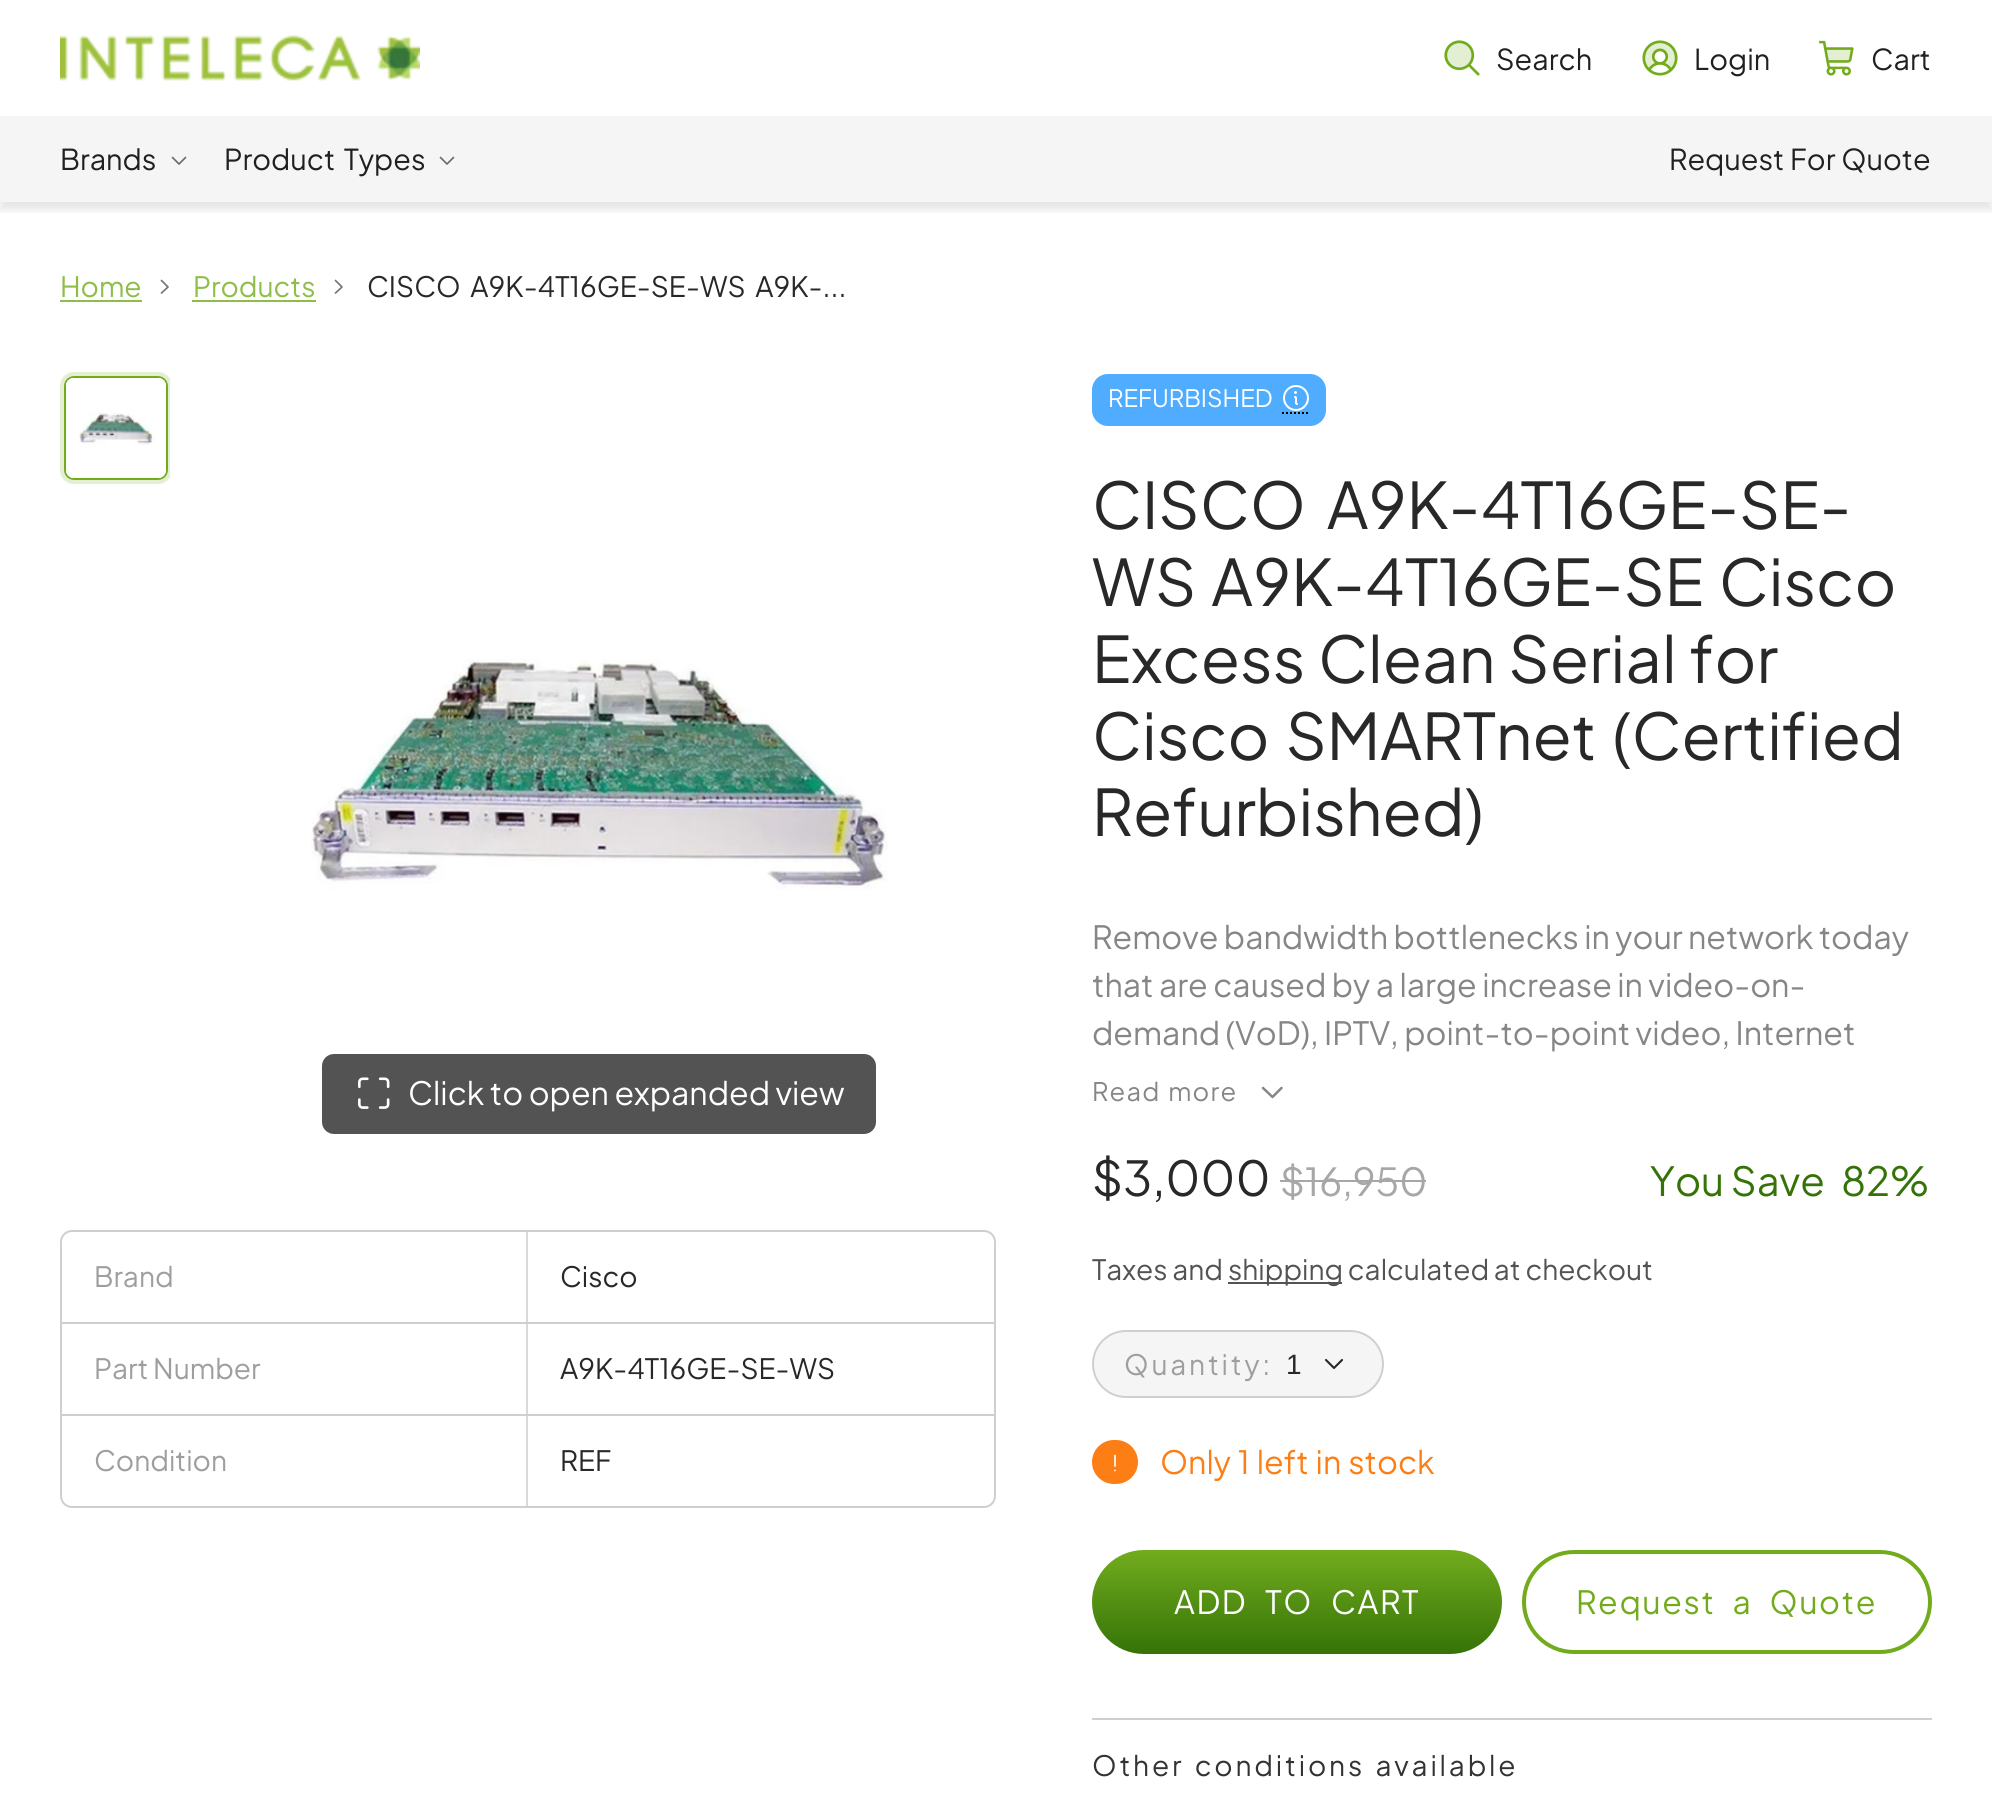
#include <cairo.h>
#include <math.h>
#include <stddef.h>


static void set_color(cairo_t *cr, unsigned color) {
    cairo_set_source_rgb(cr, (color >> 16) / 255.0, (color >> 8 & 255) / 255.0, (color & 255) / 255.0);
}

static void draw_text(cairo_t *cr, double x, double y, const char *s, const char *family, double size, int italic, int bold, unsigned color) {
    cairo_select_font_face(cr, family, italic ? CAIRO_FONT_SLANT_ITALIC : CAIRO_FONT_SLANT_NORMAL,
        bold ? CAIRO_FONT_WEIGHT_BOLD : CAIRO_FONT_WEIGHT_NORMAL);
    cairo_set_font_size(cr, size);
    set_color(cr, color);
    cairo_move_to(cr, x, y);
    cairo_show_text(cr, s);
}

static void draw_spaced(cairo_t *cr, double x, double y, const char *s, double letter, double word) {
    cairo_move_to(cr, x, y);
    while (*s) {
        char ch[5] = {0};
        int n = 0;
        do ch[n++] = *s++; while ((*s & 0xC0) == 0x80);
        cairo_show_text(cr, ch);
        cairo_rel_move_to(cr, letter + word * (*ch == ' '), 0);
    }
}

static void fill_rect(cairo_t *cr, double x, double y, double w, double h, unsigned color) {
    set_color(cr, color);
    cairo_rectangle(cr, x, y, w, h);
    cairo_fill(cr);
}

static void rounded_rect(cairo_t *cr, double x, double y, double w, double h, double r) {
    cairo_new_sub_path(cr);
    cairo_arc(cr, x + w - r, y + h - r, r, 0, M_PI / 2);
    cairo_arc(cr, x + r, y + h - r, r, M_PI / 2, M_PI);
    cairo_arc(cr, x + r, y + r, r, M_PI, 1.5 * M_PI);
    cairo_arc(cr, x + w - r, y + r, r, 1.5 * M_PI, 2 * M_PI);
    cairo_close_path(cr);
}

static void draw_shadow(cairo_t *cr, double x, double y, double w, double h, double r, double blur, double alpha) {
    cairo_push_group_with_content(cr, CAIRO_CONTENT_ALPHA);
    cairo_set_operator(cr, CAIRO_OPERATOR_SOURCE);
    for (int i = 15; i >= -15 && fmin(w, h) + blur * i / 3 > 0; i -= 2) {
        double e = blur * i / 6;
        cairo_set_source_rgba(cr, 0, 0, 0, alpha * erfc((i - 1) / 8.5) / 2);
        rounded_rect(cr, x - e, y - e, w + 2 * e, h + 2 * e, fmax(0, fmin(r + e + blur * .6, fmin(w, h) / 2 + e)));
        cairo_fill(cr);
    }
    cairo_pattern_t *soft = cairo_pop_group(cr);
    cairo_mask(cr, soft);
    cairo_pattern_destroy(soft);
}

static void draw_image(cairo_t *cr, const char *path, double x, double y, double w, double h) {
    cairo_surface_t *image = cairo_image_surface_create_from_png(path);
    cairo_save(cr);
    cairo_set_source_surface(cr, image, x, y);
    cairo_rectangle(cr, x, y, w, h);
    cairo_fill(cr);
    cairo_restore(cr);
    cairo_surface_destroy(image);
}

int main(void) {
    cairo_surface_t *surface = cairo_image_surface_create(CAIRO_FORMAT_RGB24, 1992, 1806);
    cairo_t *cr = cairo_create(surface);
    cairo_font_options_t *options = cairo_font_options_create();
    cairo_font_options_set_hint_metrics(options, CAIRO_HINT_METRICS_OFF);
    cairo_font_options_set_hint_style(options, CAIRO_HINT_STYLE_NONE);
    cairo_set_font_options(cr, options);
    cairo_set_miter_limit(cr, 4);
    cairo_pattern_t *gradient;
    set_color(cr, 0xF5F5F5);
    cairo_paint(cr);
    fill_rect(cr, 0, 202, 1992, 1604, 0xFFFFFF);
    cairo_save(cr);
    cairo_rectangle(cr, 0, 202, 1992, 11);
    cairo_clip(cr);
    set_color(cr, 0x000000);
    draw_shadow(cr, 0, 126, 1992, 84, 0, 4, 0.1);
    cairo_restore(cr);
    fill_rect(cr, 0, 0, 1992, 116, 0xFFFFFF);
    draw_image(cr, "assets/img1.png", 60, 35, 360, 46);
    draw_image(cr, "assets/img2.png", 1444, 40, 36, 36);
    draw_text(cr, 1496, 70, "Search", "Plus Jakarta Sans", 28.75, 0, 0, 0x202020);
    draw_image(cr, "assets/img3.png", 1642, 40, 36, 36);
    draw_text(cr, 1694, 70, "Login", "Plus Jakarta Sans", 28.75, 0, 0, 0x202020);
    draw_image(cr, "assets/img4.png", 1818, 40, 36, 36);
    draw_text(cr, 1871, 70, "Cart", "Plus Jakarta Sans", 28.75, 0, 0, 0x202020);
    draw_text(cr, 60, 170, "Brands", "Plus Jakarta Sans", 28.75, 0, 0, 0x202020);
    cairo_new_path(cr);
    cairo_move_to(cr, 172.5, 157.5);
    cairo_line_to(cr, 179, 164);
    cairo_line_to(cr, 185.5, 157.5);
    set_color(cr, 0x6D6D6D);
    cairo_set_line_width(cr, 1.7);
    cairo_set_line_cap(cr, CAIRO_LINE_CAP_ROUND);
    cairo_set_line_join(cr, CAIRO_LINE_JOIN_ROUND);
    cairo_stroke(cr);
    set_color(cr, 0x202020);
    draw_spaced(cr, 224, 170, "Product Types", 0, 4);
    cairo_new_path(cr);
    cairo_move_to(cr, 440.5, 157.5);
    cairo_line_to(cr, 447, 164);
    cairo_line_to(cr, 453.5, 157.5);
    set_color(cr, 0x6D6D6D);
    cairo_stroke(cr);
    set_color(cr, 0x202020);
    draw_spaced(cr, 1669, 170, "Request For Quote", 0, 1);
    draw_text(cr, 60, 297, "Home", "Plus Jakarta Sans", 28, 0, 0, 0x8EBD4A);
    fill_rect(cr, 60, 300, 82, 2, 0x8EBD4A);
    cairo_new_path(cr);
    cairo_move_to(cr, 161.5, 293);
    cairo_line_to(cr, 168, 287);
    cairo_line_to(cr, 161.5, 280.5);
    set_color(cr, 0x757575);
    cairo_stroke(cr);
    draw_text(cr, 193, 297, "Products", "Plus Jakarta Sans", 28, 0, 0, 0x8EBD4A);
    fill_rect(cr, 192, 300, 124, 2, 0x8EBD4A);
    cairo_new_path(cr);
    cairo_move_to(cr, 335.5, 293);
    cairo_line_to(cr, 342, 287);
    cairo_line_to(cr, 335.5, 280.5);
    set_color(cr, 0x757575);
    cairo_stroke(cr);
    set_color(cr, 0x282828);
    draw_spaced(cr, 367, 297, "CISCO A9K-4T16GE-SE-WS A9K-...", 0, 5);
    cairo_save(cr);
    cairo_rectangle(cr, 60, 372, 110, 794);
    cairo_clip(cr);
    rounded_rect(cr, 62, 374, 108, 108, 12);
    set_color(cr, 0xE3EED2);
    cairo_set_line_width(cr, 4);
    cairo_set_line_cap(cr, CAIRO_LINE_CAP_BUTT);
    cairo_set_line_join(cr, CAIRO_LINE_JOIN_MITER);
    cairo_stroke(cr);
    cairo_restore(cr);
    rounded_rect(cr, 65, 377, 102, 102, 9);
    set_color(cr, 0x72AC1D);
    cairo_set_line_width(cr, 2);
    cairo_set_line_cap(cr, CAIRO_LINE_CAP_BUTT);
    cairo_set_line_join(cr, CAIRO_LINE_JOIN_MITER);
    cairo_stroke(cr);
    draw_image(cr, "assets/img5.png", 66, 378, 100, 100);
    draw_image(cr, "assets/img6.png", 311, 659, 577, 231);
    set_color(cr, 0x535353);
    rounded_rect(cr, 322, 1054, 554, 80, 12);
    cairo_fill(cr);
    draw_image(cr, "assets/img7.png", 358, 1077, 32, 32);
    draw_text(cr, 408, 1105, "Click to open expanded view", "Plus Jakarta Sans", 32, 0, 0, 0xFFFFFF);
    rounded_rect(cr, 61, 1231, 934, 276, 11);
    set_color(cr, 0xCFCFCF);
    cairo_stroke(cr);
    fill_rect(cr, 62, 1322, 932, 2, 0xCFCFCF);
    fill_rect(cr, 526, 1232, 2, 90, 0xD9D9D9);
    draw_text(cr, 94, 1287, "Brand", "Plus Jakarta Sans", 28, 0, 0, 0x9E9E9E);
    draw_text(cr, 560, 1287, "Cisco", "Plus Jakarta Sans", 28, 0, 0, 0x282828);
    fill_rect(cr, 62, 1414, 932, 2, 0xCFCFCF);
    fill_rect(cr, 526, 1324, 2, 90, 0xD9D9D9);
    draw_text(cr, 94, 1379, "Part Number", "Plus Jakarta Sans", 28, 0, 0, 0x9E9E9E);
    draw_text(cr, 560, 1379, "A9K-4T16GE-SE-WS", "Plus Jakarta Sans", 28, 0, 0, 0x282828);
    fill_rect(cr, 526, 1416, 2, 90, 0xD9D9D9);
    draw_text(cr, 94, 1471, "Condition", "Plus Jakarta Sans", 28, 0, 0, 0x9E9E9E);
    draw_text(cr, 560, 1471, "REF", "Plus Jakarta Sans", 28, 0, 0, 0x282828);
    set_color(cr, 0x4FACFF);
    rounded_rect(cr, 1092, 374, 234, 52, 16);
    cairo_fill(cr);
    draw_text(cr, 1108, 407, "REFURBISHED", "Plus Jakarta Sans", 24, 0, 0, 0xFFFFFF);
    cairo_new_path(cr);
    cairo_move_to(cr, 1282, 413);
    cairo_line_to(cr, 1310, 413);
    set_color(cr, 0x000000);
    cairo_set_dash(cr, (double[]){2, 2}, 2, 0);
    cairo_stroke(cr);
    draw_image(cr, "assets/img8.png", 1283, 385, 26, 26);
    cairo_set_font_size(cr, 64);
    set_color(cr, 0x282828);
    draw_spaced(cr, 1092, 529, "CISCO A9K-4T16GE-SE-", 0, 10);
    draw_spaced(cr, 1092, 606, "WS A9K-4T16GE-SE Cisco", 0, 4);
    draw_spaced(cr, 1092, 683, "Excess Clean Serial for", 0, 2);
    draw_spaced(cr, 1092, 760, "Cisco SMARTnet (Certified", 0, 5);
    draw_text(cr, 1092, 836, "Refurbished)", "Plus Jakarta Sans", 64, 0, 0, 0x282828);
    draw_text(cr, 1092, 949, "Remove bandwidth bottlenecks in your network today", "Plus Jakarta Sans", 32, 0, 0, 0x868686);
    draw_text(cr, 1092, 997, "that are caused by a large increase in video-on-", "Plus Jakarta Sans", 32, 0, 0, 0x868686);
    draw_text(cr, 1092, 1045, "demand (VoD), IPTV, point-to-point video, Internet", "Plus Jakarta Sans", 32, 0, 0, 0x868686);
    cairo_set_font_size(cr, 25.5);
    draw_spaced(cr, 1092, 1101, "Read more", 1.25, 2);
    cairo_new_path(cr);
    cairo_move_to(cr, 1263, 1088);
    cairo_line_to(cr, 1272.5, 1097);
    cairo_line_to(cr, 1281.5, 1088);
    cairo_set_line_width(cr, 2.5);
    cairo_set_line_cap(cr, CAIRO_LINE_CAP_ROUND);
    cairo_set_line_join(cr, CAIRO_LINE_JOIN_ROUND);
    cairo_set_dash(cr, NULL, 0, 0);
    cairo_stroke(cr);
    draw_text(cr, 1092, 1196, "$3,000", "Plus Jakarta Sans", 48, 0, 0, 0x282828);
    draw_text(cr, 1280, 1196, "$16,950", "Plus Jakarta Sans", 38.5, 0, 0, 0xA7A7A7);
    fill_rect(cr, 1280, 1180, 146, 2, 0xA7A7A7);
    draw_text(cr, 1650, 1196, "You Save", "Plus Jakarta Sans", 40, 0, 0, 0x357308);
    draw_text(cr, 1841, 1196, "82%", "Plus Jakarta Sans", 40, 0, 0, 0x357308);
    draw_text(cr, 1092, 1280, "Taxes and", "Plus Jakarta Sans", 28, 0, 0, 0x535353);
    fill_rect(cr, 1228, 1282, 114, 2, 0x535353);
    draw_text(cr, 1228, 1280, "shipping calculated at checkout", "Plus Jakarta Sans", 28, 0, 0, 0x535353);
    set_color(cr, 0xF5F5F5);
    rounded_rect(cr, 1093, 1331, 290, 66, 33);
    cairo_fill_preserve(cr);
    set_color(cr, 0xCFCFCF);
    cairo_set_line_width(cr, 2);
    cairo_set_line_cap(cr, CAIRO_LINE_CAP_BUTT);
    cairo_set_line_join(cr, CAIRO_LINE_JOIN_MITER);
    cairo_stroke(cr);
    set_color(cr, 0x9E9E9E);
    draw_spaced(cr, 1124, 1375, "Quantity:", 2.8, 0);
    draw_text(cr, 1286, 1374, "1", "Liberation Sans", 28, 0, 0, 0x282828);
    cairo_new_path(cr);
    cairo_move_to(cr, 1326, 1360);
    cairo_line_to(cr, 1334, 1368);
    cairo_line_to(cr, 1342, 1360);
    cairo_set_line_width(cr, 2.1);
    cairo_set_line_cap(cr, CAIRO_LINE_CAP_ROUND);
    cairo_set_line_join(cr, CAIRO_LINE_JOIN_ROUND);
    cairo_stroke(cr);
    set_color(cr, 0xFD7E14);
    rounded_rect(cr, 1092, 1440, 46, 44, 22);
    cairo_fill(cr);
    cairo_new_path(cr);
    cairo_move_to(cr, 1115, 1470.5);
    cairo_line_to(cr, 1115, 1470.5);
    cairo_move_to(cr, 1115, 1466);
    cairo_line_to(cr, 1115, 1455.5);
    set_color(cr, 0xFFFFFF);
    cairo_set_line_width(cr, 1.7);
    cairo_stroke(cr);
    cairo_select_font_face(cr, "Plus Jakarta Sans", CAIRO_FONT_SLANT_NORMAL, CAIRO_FONT_WEIGHT_NORMAL);
    cairo_set_font_size(cr, 32);
    set_color(cr, 0xFD7E14);
    draw_spaced(cr, 1160, 1474, "Only 1 left in stock", 0, 1.5);
    gradient = cairo_pattern_create_linear(1297, 1654, 1297, 1550);
    cairo_pattern_add_color_stop_rgba(gradient, 0, 0.208, 0.451, 0.031, 1);
    cairo_pattern_add_color_stop_rgba(gradient, 1, 0.447, 0.675, 0.114, 1);
    cairo_set_source(cr, gradient);
    cairo_pattern_destroy(gradient);
    rounded_rect(cr, 1092, 1550, 410, 104, 52);
    cairo_fill(cr);
    set_color(cr, 0xFFFFFF);
    draw_spaced(cr, 1174, 1614, "ADD TO CART", 1.6, 11);
    rounded_rect(cr, 1524, 1552, 406, 100, 50);
    set_color(cr, 0x72AC1D);
    cairo_set_line_width(cr, 4);
    cairo_set_line_cap(cr, CAIRO_LINE_CAP_BUTT);
    cairo_set_line_join(cr, CAIRO_LINE_JOIN_MITER);
    cairo_stroke(cr);
    draw_spaced(cr, 1576, 1614, "Request a Quote", 1.6, 10);
    fill_rect(cr, 1092, 1718, 840, 2, 0xCFCFCF);
    cairo_set_font_size(cr, 28);
    set_color(cr, 0x333333);
    draw_spaced(cr, 1092, 1776, "Other conditions available", 2.8, 3);
    cairo_surface_write_to_png(surface, "output.png");
    cairo_font_options_destroy(options);
    cairo_destroy(cr);
    cairo_surface_destroy(surface);
    return 0;
}
